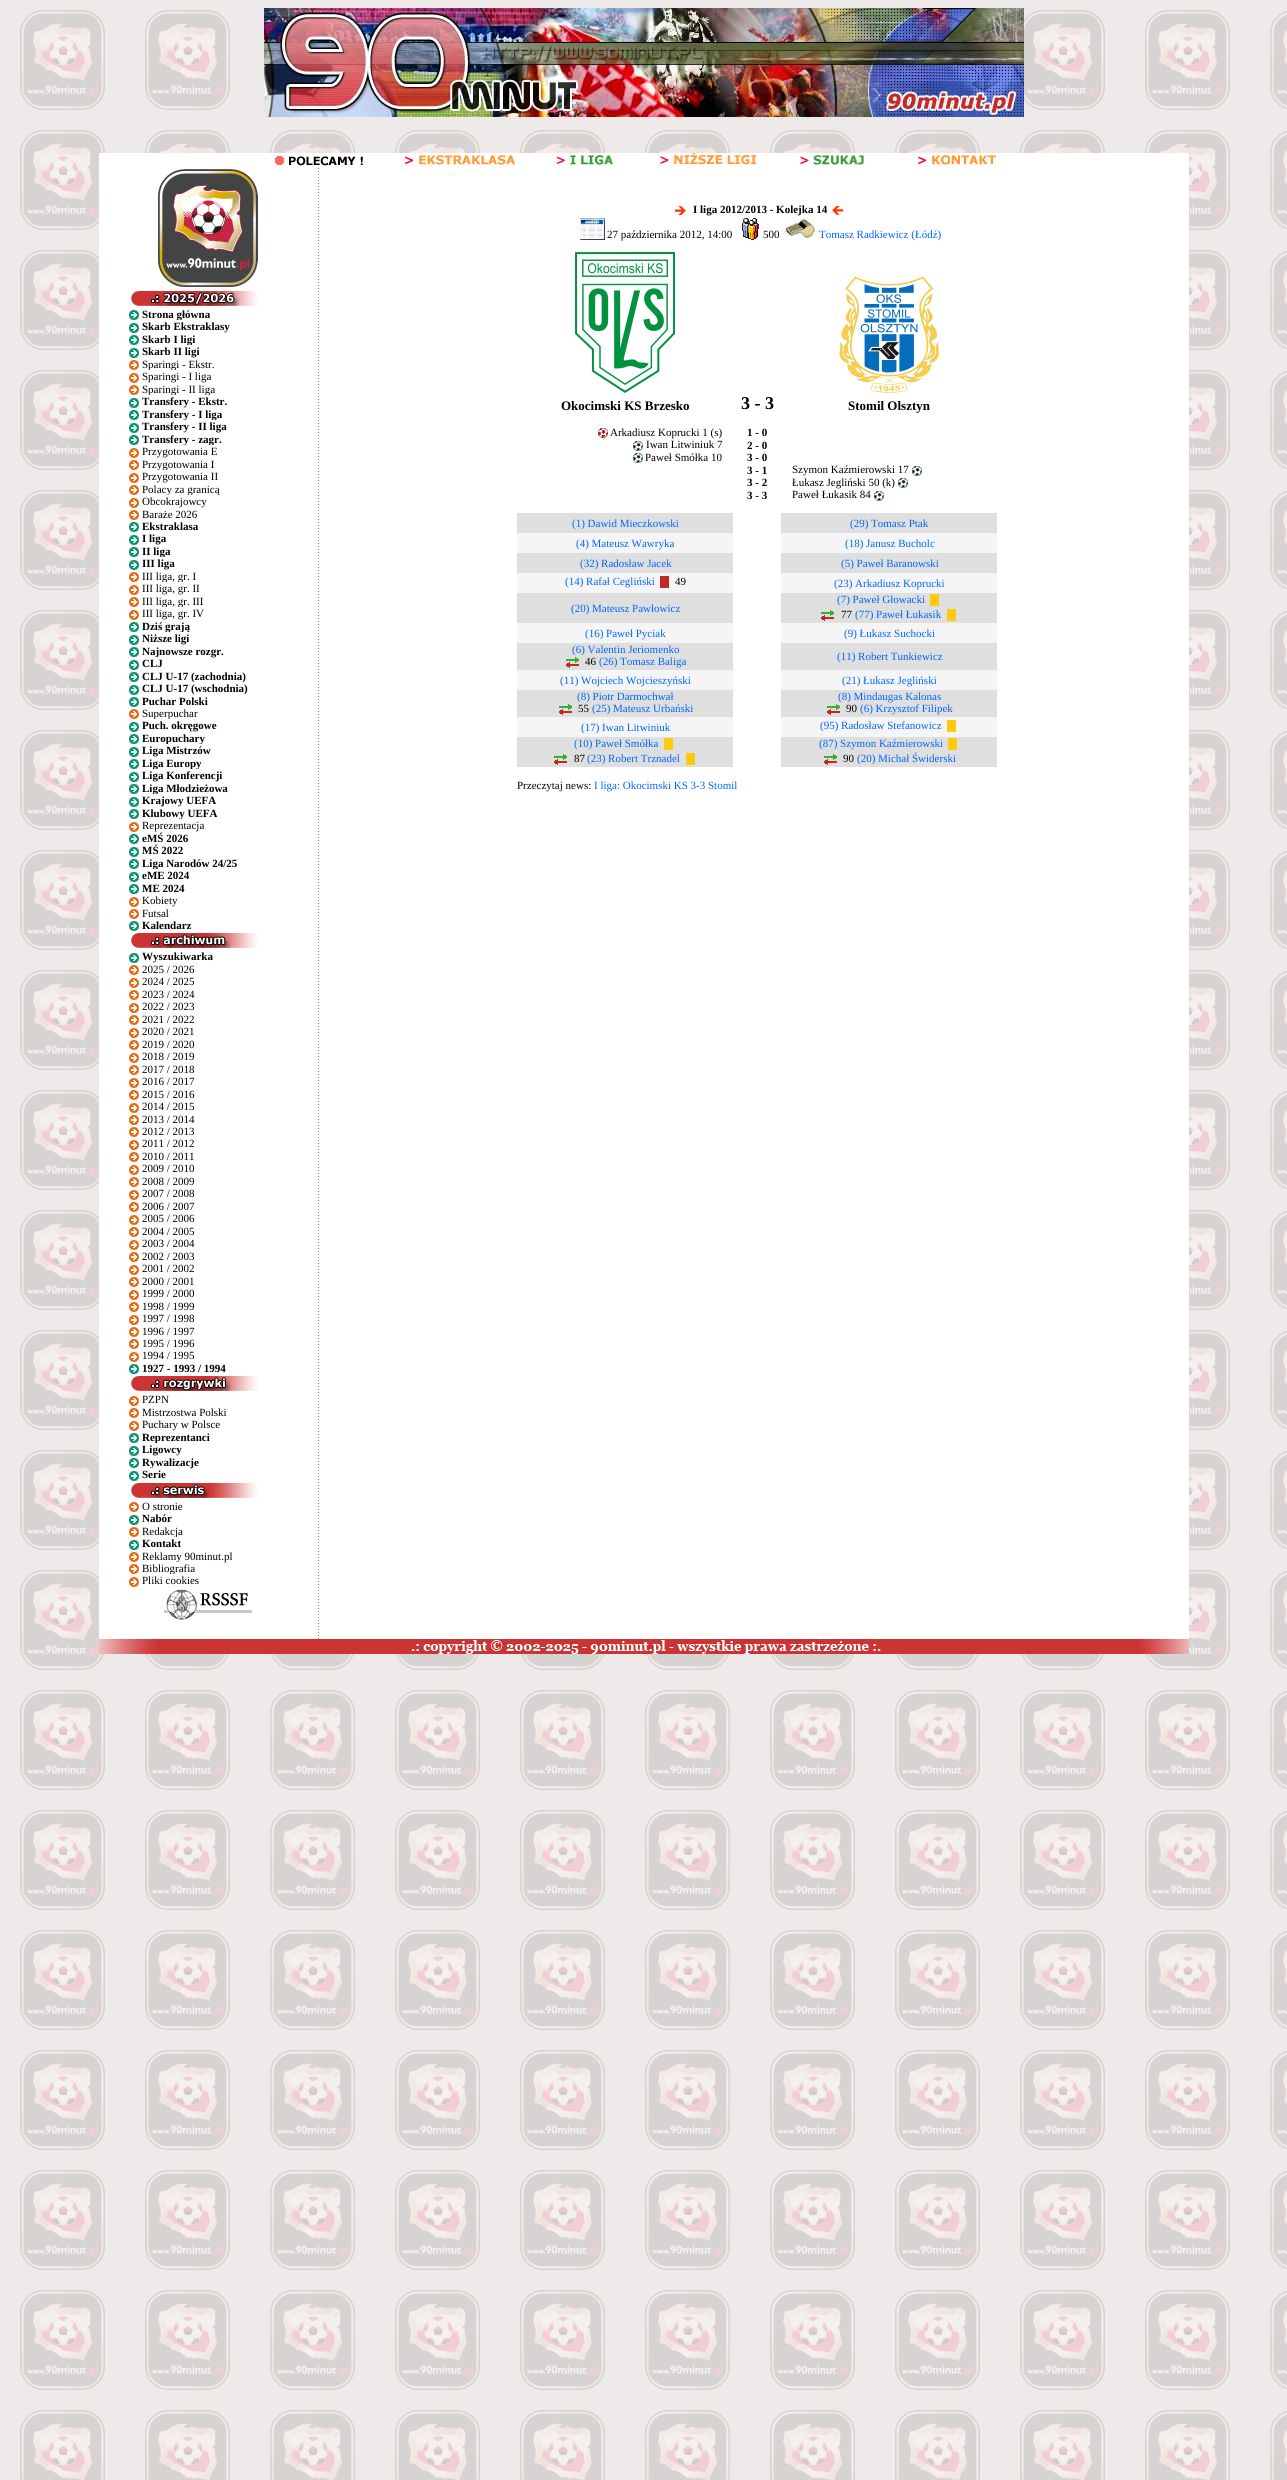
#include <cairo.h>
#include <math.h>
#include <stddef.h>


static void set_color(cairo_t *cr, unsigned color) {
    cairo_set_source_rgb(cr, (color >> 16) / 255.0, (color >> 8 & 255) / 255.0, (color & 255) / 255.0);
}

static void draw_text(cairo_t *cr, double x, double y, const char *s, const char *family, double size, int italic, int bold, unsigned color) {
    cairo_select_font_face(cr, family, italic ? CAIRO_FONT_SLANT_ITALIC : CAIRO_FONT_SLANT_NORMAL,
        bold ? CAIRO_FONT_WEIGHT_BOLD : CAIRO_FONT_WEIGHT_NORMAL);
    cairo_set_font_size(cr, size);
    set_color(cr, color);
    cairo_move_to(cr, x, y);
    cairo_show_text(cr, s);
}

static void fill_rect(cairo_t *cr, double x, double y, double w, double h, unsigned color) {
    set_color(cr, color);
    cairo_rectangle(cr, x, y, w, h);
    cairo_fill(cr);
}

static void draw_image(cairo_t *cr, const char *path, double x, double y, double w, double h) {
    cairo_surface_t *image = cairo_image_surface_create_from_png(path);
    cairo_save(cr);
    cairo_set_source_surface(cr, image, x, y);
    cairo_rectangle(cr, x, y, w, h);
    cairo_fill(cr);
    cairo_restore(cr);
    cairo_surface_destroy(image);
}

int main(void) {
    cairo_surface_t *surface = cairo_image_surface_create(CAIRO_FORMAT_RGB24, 1287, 2480);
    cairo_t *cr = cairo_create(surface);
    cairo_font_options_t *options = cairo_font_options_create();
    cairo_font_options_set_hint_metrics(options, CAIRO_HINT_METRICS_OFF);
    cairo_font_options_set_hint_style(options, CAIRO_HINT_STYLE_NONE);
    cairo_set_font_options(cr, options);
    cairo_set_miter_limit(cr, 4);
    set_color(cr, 0xFFFFFF);
    cairo_paint(cr);
    draw_image(cr, "assets/img1.png", 0, 0, 1287, 2480);
    draw_image(cr, "assets/img2.png", 264, 8, 760, 109);
    fill_rect(cr, 99, 153, 1090, 15, 0xFFFFFF);
    draw_image(cr, "assets/img3.png", 275, 156, 88, 10);
    draw_image(cr, "assets/img4.png", 405, 155, 110, 10);
    draw_image(cr, "assets/img5.png", 556, 155, 58, 10);
    draw_image(cr, "assets/img6.png", 659, 153, 98, 12);
    draw_image(cr, "assets/img7.png", 800, 155, 64, 10);
    draw_image(cr, "assets/img8.png", 918, 155, 78, 10);
    fill_rect(cr, 319, 168, 870, 1471, 0xFFFFFF);
    draw_image(cr, "assets/img9.png", 318, 168, 1, 1471);
    fill_rect(cr, 99, 168, 219, 1471, 0xFFFFFF);
    draw_image(cr, "assets/img10.png", 158, 169, 100, 118);
    draw_image(cr, "assets/img11.png", 131, 291, 18, 15);
    draw_image(cr, "assets/img12.png", 149, 291, 108, 15);
    draw_image(cr, "assets/img13.png", 129, 310, 10, 10);
    draw_text(cr, 142, 318, "Strona główna", "Liberation Serif", 11, 0, 1, 0x000000);
    draw_image(cr, "assets/img13.png", 129, 323, 10, 10);
    draw_text(cr, 142, 330, "Skarb Ekstraklasy", "Liberation Serif", 11, 0, 1, 0x000000);
    fill_rect(cr, 177, 320, 4, 1, 0xFFFFFF);
    draw_image(cr, "assets/img13.png", 129, 335, 10, 10);
    draw_text(cr, 142, 343, "Skarb I ligi", "Liberation Serif", 11, 0, 1, 0x000000);
    draw_image(cr, "assets/img13.png", 129, 348, 10, 10);
    draw_text(cr, 142, 355, "Skarb II ligi", "Liberation Serif", 11, 0, 1, 0x000000);
    fill_rect(cr, 187, 345, 4, 1, 0xFFFFFF);
    draw_image(cr, "assets/img14.png", 129, 360, 10, 10);
    draw_text(cr, 142, 368, "Sparingi - Ekstr.", "Liberation Serif", 11, 0, 0, 0x000000);
    draw_image(cr, "assets/img14.png", 129, 373, 10, 10);
    draw_text(cr, 142, 380, "Sparingi - I liga", "Liberation Serif", 11, 0, 0, 0x000000);
    fill_rect(cr, 148, 370, 27, 1, 0xFFFFFF);
    draw_image(cr, "assets/img14.png", 129, 385, 10, 10);
    draw_text(cr, 142, 393, "Sparingi - II liga", "Liberation Serif", 11, 0, 0, 0x000000);
    draw_image(cr, "assets/img13.png", 129, 398, 10, 10);
    draw_text(cr, 142, 405, "Transfery - Ekstr.", "Liberation Serif", 11, 0, 1, 0x000000);
    fill_rect(cr, 148, 395, 61, 1, 0xFFFFFF);
    draw_image(cr, "assets/img13.png", 129, 410, 10, 10);
    draw_text(cr, 142, 418, "Transfery - I liga", "Liberation Serif", 11, 0, 1, 0x000000);
    draw_image(cr, "assets/img13.png", 129, 423, 10, 10);
    draw_text(cr, 142, 430, "Transfery - II liga", "Liberation Serif", 11, 0, 1, 0x000000);
    fill_rect(cr, 183, 420, 33, 1, 0xFFFFFF);
    draw_image(cr, "assets/img13.png", 129, 435, 10, 10);
    draw_text(cr, 142, 443, "Transfery - zagr.", "Liberation Serif", 11, 0, 1, 0x000000);
    draw_image(cr, "assets/img14.png", 129, 448, 10, 10);
    draw_text(cr, 142, 455, "Przygotowania E", "Liberation Serif", 11, 0, 0, 0x000000);
    fill_rect(cr, 183, 445, 30, 1, 0xFFFFFF);
    draw_image(cr, "assets/img14.png", 129, 460, 10, 10);
    draw_text(cr, 142, 468, "Przygotowania I", "Liberation Serif", 11, 0, 0, 0x000000);
    draw_image(cr, "assets/img14.png", 129, 473, 10, 10);
    draw_text(cr, 142, 480, "Przygotowania II", "Liberation Serif", 11, 0, 0, 0x000000);
    fill_rect(cr, 157, 470, 10, 1, 0xFFFFFF);
    draw_image(cr, "assets/img14.png", 129, 485, 10, 10);
    draw_text(cr, 142, 493, "Polacy za granicą", "Liberation Serif", 11, 0, 0, 0x000000);
    draw_image(cr, "assets/img14.png", 129, 498, 10, 10);
    draw_text(cr, 142, 505, "Obcokrajowcy", "Liberation Serif", 11, 0, 0, 0x000000);
    fill_rect(cr, 166, 495, 26, 1, 0xFFFFFF);
    draw_image(cr, "assets/img14.png", 129, 510, 10, 10);
    draw_text(cr, 142, 518, "Baraże 2026", "Liberation Serif", 11, 0, 0, 0x000000);
    draw_image(cr, "assets/img13.png", 129, 522, 10, 10);
    draw_text(cr, 142, 530, "Ekstraklasa", "Liberation Serif", 11, 0, 1, 0x000000);
    draw_image(cr, "assets/img13.png", 129, 535, 10, 10);
    draw_text(cr, 142, 542, "I liga", "Liberation Serif", 11, 0, 1, 0x000000);
    draw_image(cr, "assets/img13.png", 129, 547, 10, 10);
    draw_text(cr, 142, 555, "II liga", "Liberation Serif", 11, 0, 1, 0x000000);
    draw_image(cr, "assets/img13.png", 129, 560, 10, 10);
    draw_text(cr, 142, 567, "III liga", "Liberation Serif", 11, 0, 1, 0x000000);
    fill_rect(cr, 160, 557, 4, 1, 0xFFFFFF);
    draw_image(cr, "assets/img14.png", 129, 572, 10, 10);
    draw_text(cr, 142, 580, "III liga, gr. I", "Liberation Serif", 11, 0, 0, 0x000000);
    draw_image(cr, "assets/img14.png", 129, 585, 10, 10);
    draw_text(cr, 142, 592, "III liga, gr. II", "Liberation Serif", 11, 0, 0, 0x000000);
    fill_rect(cr, 163, 582, 19, 1, 0xFFFFFF);
    draw_image(cr, "assets/img14.png", 129, 597, 10, 10);
    draw_text(cr, 142, 605, "III liga, gr. III", "Liberation Serif", 11, 0, 0, 0x000000);
    draw_image(cr, "assets/img14.png", 129, 610, 10, 10);
    draw_text(cr, 142, 617, "III liga, gr. IV", "Liberation Serif", 11, 0, 0, 0x000000);
    fill_rect(cr, 163, 607, 19, 1, 0xFFFFFF);
    draw_image(cr, "assets/img13.png", 129, 622, 10, 10);
    draw_text(cr, 142, 630, "Dziś grają", "Liberation Serif", 11, 0, 1, 0x000000);
    draw_image(cr, "assets/img13.png", 129, 635, 10, 10);
    draw_text(cr, 142, 642, "Niższe ligi", "Liberation Serif", 11, 0, 1, 0x000000);
    fill_rect(cr, 165, 632, 24, 1, 0xFFFFFF);
    draw_image(cr, "assets/img13.png", 129, 647, 10, 10);
    draw_text(cr, 142, 655, "Najnowsze rozgr.", "Liberation Serif", 11, 0, 1, 0x000000);
    draw_image(cr, "assets/img13.png", 129, 660, 10, 10);
    draw_text(cr, 142, 667, "CLJ", "Liberation Serif", 11, 0, 1, 0x000000);
    fill_rect(cr, 155, 657, 3, 1, 0xFFFFFF);
    draw_image(cr, "assets/img13.png", 129, 672, 10, 10);
    draw_text(cr, 142, 680, "CLJ U-17 (zachodnia)", "Liberation Serif", 11, 0, 1, 0x000000);
    draw_image(cr, "assets/img13.png", 129, 685, 10, 10);
    draw_text(cr, 142, 692, "CLJ U-17 (wschodnia)", "Liberation Serif", 11, 0, 1, 0x000000);
    fill_rect(cr, 193, 682, 51, 1, 0xFFFFFF);
    draw_image(cr, "assets/img13.png", 129, 697, 10, 10);
    draw_text(cr, 142, 705, "Puchar Polski", "Liberation Serif", 11, 0, 1, 0x000000);
    draw_image(cr, "assets/img14.png", 129, 709, 10, 10);
    draw_text(cr, 142, 717, "Superpuchar", "Liberation Serif", 11, 0, 0, 0x000000);
    draw_image(cr, "assets/img13.png", 129, 722, 10, 10);
    draw_text(cr, 142, 729, "Puch. okręgowe", "Liberation Serif", 11, 0, 1, 0x000000);
    fill_rect(cr, 153, 719, 18, 1, 0xFFFFFF);
    draw_image(cr, "assets/img13.png", 129, 734, 10, 10);
    draw_text(cr, 142, 742, "Europuchary", "Liberation Serif", 11, 0, 1, 0x000000);
    draw_image(cr, "assets/img13.png", 129, 747, 10, 10);
    draw_text(cr, 142, 754, "Liga Mistrzów", "Liberation Serif", 11, 0, 1, 0x000000);
    fill_rect(cr, 166, 744, 36, 1, 0xFFFFFF);
    draw_image(cr, "assets/img13.png", 129, 759, 10, 10);
    draw_text(cr, 142, 767, "Liga Europy", "Liberation Serif", 11, 0, 1, 0x000000);
    draw_image(cr, "assets/img13.png", 129, 772, 10, 10);
    draw_text(cr, 142, 779, "Liga Konferencji", "Liberation Serif", 11, 0, 1, 0x000000);
    fill_rect(cr, 153, 769, 46, 1, 0xFFFFFF);
    draw_image(cr, "assets/img13.png", 129, 784, 10, 10);
    draw_text(cr, 142, 792, "Liga Młodzieżowa", "Liberation Serif", 11, 0, 1, 0x000000);
    draw_image(cr, "assets/img13.png", 129, 797, 10, 10);
    draw_text(cr, 142, 804, "Krajowy UEFA", "Liberation Serif", 11, 0, 1, 0x000000);
    fill_rect(cr, 153, 794, 4, 1, 0xFFFFFF);
    draw_image(cr, "assets/img13.png", 129, 809, 10, 10);
    draw_text(cr, 142, 817, "Klubowy UEFA", "Liberation Serif", 11, 0, 1, 0x000000);
    draw_image(cr, "assets/img14.png", 129, 822, 10, 10);
    draw_text(cr, 142, 829, "Reprezentacja", "Liberation Serif", 11, 0, 0, 0x000000);
    fill_rect(cr, 179, 819, 3, 1, 0xFFFFFF);
    draw_image(cr, "assets/img13.png", 129, 834, 10, 10);
    draw_text(cr, 142, 842, "eMŚ 2026", "Liberation Serif", 11, 0, 1, 0x000000);
    draw_image(cr, "assets/img13.png", 129, 847, 10, 10);
    draw_text(cr, 142, 854, "MŚ 2022", "Liberation Serif", 11, 0, 1, 0x000000);
    draw_image(cr, "assets/img13.png", 129, 859, 10, 10);
    draw_text(cr, 142, 867, "Liga Narodów 24/25", "Liberation Serif", 11, 0, 1, 0x000000);
    draw_image(cr, "assets/img13.png", 129, 872, 10, 10);
    draw_text(cr, 142, 879, "eME 2024", "Liberation Serif", 11, 0, 1, 0x000000);
    fill_rect(cr, 153, 869, 4, 1, 0xFFFFFF);
    draw_image(cr, "assets/img13.png", 129, 884, 10, 10);
    draw_text(cr, 142, 892, "ME 2024", "Liberation Serif", 11, 0, 1, 0x000000);
    draw_image(cr, "assets/img14.png", 129, 897, 10, 10);
    draw_text(cr, 142, 904, "Kobiety", "Liberation Serif", 11, 0, 0, 0x000000);
    draw_image(cr, "assets/img14.png", 129, 909, 10, 10);
    draw_text(cr, 142, 917, "Futsal", "Liberation Serif", 11, 0, 0, 0x000000);
    draw_image(cr, "assets/img13.png", 129, 921, 10, 10);
    draw_text(cr, 142, 929, "Kalendarz", "Liberation Serif", 11, 0, 1, 0x000000);
    draw_image(cr, "assets/img11.png", 131, 933, 18, 15);
    draw_image(cr, "assets/img15.png", 149, 933, 108, 15);
    draw_image(cr, "assets/img13.png", 129, 953, 10, 10);
    draw_text(cr, 142, 960, "Wyszukiwarka", "Liberation Serif", 11, 0, 1, 0x000000);
    draw_image(cr, "assets/img14.png", 129, 965, 10, 10);
    draw_text(cr, 142, 973, "2025 / 2026", "Liberation Serif", 11, 0, 0, 0x000000);
    draw_image(cr, "assets/img14.png", 129, 978, 10, 10);
    draw_text(cr, 142, 985, "2024 / 2025", "Liberation Serif", 11, 0, 0, 0x000000);
    draw_image(cr, "assets/img14.png", 129, 990, 10, 10);
    draw_text(cr, 142, 998, "2023 / 2024", "Liberation Serif", 11, 0, 0, 0x000000);
    draw_image(cr, "assets/img14.png", 129, 1003, 10, 10);
    draw_text(cr, 142, 1010, "2022 / 2023", "Liberation Serif", 11, 0, 0, 0x000000);
    draw_image(cr, "assets/img14.png", 129, 1015, 10, 10);
    draw_text(cr, 142, 1023, "2021 / 2022", "Liberation Serif", 11, 0, 0, 0x000000);
    draw_image(cr, "assets/img14.png", 129, 1028, 10, 10);
    draw_text(cr, 142, 1035, "2020 / 2021", "Liberation Serif", 11, 0, 0, 0x000000);
    draw_image(cr, "assets/img14.png", 129, 1040, 10, 10);
    draw_text(cr, 142, 1048, "2019 / 2020", "Liberation Serif", 11, 0, 0, 0x000000);
    draw_image(cr, "assets/img14.png", 129, 1053, 10, 10);
    draw_text(cr, 142, 1060, "2018 / 2019", "Liberation Serif", 11, 0, 0, 0x000000);
    draw_image(cr, "assets/img14.png", 129, 1065, 10, 10);
    draw_text(cr, 142, 1073, "2017 / 2018", "Liberation Serif", 11, 0, 0, 0x000000);
    draw_image(cr, "assets/img14.png", 129, 1078, 10, 10);
    draw_text(cr, 142, 1085, "2016 / 2017", "Liberation Serif", 11, 0, 0, 0x000000);
    draw_image(cr, "assets/img14.png", 129, 1090, 10, 10);
    draw_text(cr, 142, 1098, "2015 / 2016", "Liberation Serif", 11, 0, 0, 0x000000);
    draw_image(cr, "assets/img14.png", 129, 1103, 10, 10);
    draw_text(cr, 142, 1110, "2014 / 2015", "Liberation Serif", 11, 0, 0, 0x000000);
    draw_image(cr, "assets/img14.png", 129, 1115, 10, 10);
    draw_text(cr, 142, 1123, "2013 / 2014", "Liberation Serif", 11, 0, 0, 0x000000);
    draw_image(cr, "assets/img14.png", 129, 1127, 10, 10);
    draw_text(cr, 142, 1135, "2012 / 2013", "Liberation Serif", 11, 0, 0, 0x000000);
    draw_image(cr, "assets/img14.png", 129, 1140, 10, 10);
    draw_text(cr, 142, 1147, "2011 / 2012", "Liberation Serif", 11, 0, 0, 0x000000);
    draw_image(cr, "assets/img14.png", 129, 1152, 10, 10);
    draw_text(cr, 142, 1160, "2010 / 2011", "Liberation Serif", 11, 0, 0, 0x000000);
    draw_image(cr, "assets/img14.png", 129, 1165, 10, 10);
    draw_text(cr, 142, 1172, "2009 / 2010", "Liberation Serif", 11, 0, 0, 0x000000);
    draw_image(cr, "assets/img14.png", 129, 1177, 10, 10);
    draw_text(cr, 142, 1185, "2008 / 2009", "Liberation Serif", 11, 0, 0, 0x000000);
    draw_image(cr, "assets/img14.png", 129, 1190, 10, 10);
    draw_text(cr, 142, 1197, "2007 / 2008", "Liberation Serif", 11, 0, 0, 0x000000);
    draw_image(cr, "assets/img14.png", 129, 1202, 10, 10);
    draw_text(cr, 142, 1210, "2006 / 2007", "Liberation Serif", 11, 0, 0, 0x000000);
    draw_image(cr, "assets/img14.png", 129, 1215, 10, 10);
    draw_text(cr, 142, 1222, "2005 / 2006", "Liberation Serif", 11, 0, 0, 0x000000);
    draw_image(cr, "assets/img14.png", 129, 1227, 10, 10);
    draw_text(cr, 142, 1235, "2004 / 2005", "Liberation Serif", 11, 0, 0, 0x000000);
    draw_image(cr, "assets/img14.png", 129, 1240, 10, 10);
    draw_text(cr, 142, 1247, "2003 / 2004", "Liberation Serif", 11, 0, 0, 0x000000);
    draw_image(cr, "assets/img14.png", 129, 1252, 10, 10);
    draw_text(cr, 142, 1260, "2002 / 2003", "Liberation Serif", 11, 0, 0, 0x000000);
    draw_image(cr, "assets/img14.png", 129, 1265, 10, 10);
    draw_text(cr, 142, 1272, "2001 / 2002", "Liberation Serif", 11, 0, 0, 0x000000);
    draw_image(cr, "assets/img14.png", 129, 1277, 10, 10);
    draw_text(cr, 142, 1285, "2000 / 2001", "Liberation Serif", 11, 0, 0, 0x000000);
    draw_image(cr, "assets/img14.png", 129, 1290, 10, 10);
    draw_text(cr, 142, 1297, "1999 / 2000", "Liberation Serif", 11, 0, 0, 0x000000);
    draw_image(cr, "assets/img14.png", 129, 1302, 10, 10);
    draw_text(cr, 142, 1310, "1998 / 1999", "Liberation Serif", 11, 0, 0, 0x000000);
    draw_image(cr, "assets/img14.png", 129, 1315, 10, 10);
    draw_text(cr, 142, 1322, "1997 / 1998", "Liberation Serif", 11, 0, 0, 0x000000);
    draw_image(cr, "assets/img14.png", 129, 1327, 10, 10);
    draw_text(cr, 142, 1335, "1996 / 1997", "Liberation Serif", 11, 0, 0, 0x000000);
    draw_image(cr, "assets/img14.png", 129, 1339, 10, 10);
    draw_text(cr, 142, 1347, "1995 / 1996", "Liberation Serif", 11, 0, 0, 0x000000);
    draw_image(cr, "assets/img14.png", 129, 1352, 10, 10);
    draw_text(cr, 142, 1359, "1994 / 1995", "Liberation Serif", 11, 0, 0, 0x000000);
    draw_image(cr, "assets/img13.png", 129, 1364, 10, 10);
    draw_text(cr, 142, 1372, "1927 - 1993 / 1994", "Liberation Serif", 11, 0, 1, 0x000000);
    draw_image(cr, "assets/img11.png", 131, 1376, 18, 15);
    draw_image(cr, "assets/img16.png", 149, 1376, 108, 15);
    draw_image(cr, "assets/img14.png", 129, 1396, 10, 10);
    draw_text(cr, 142, 1403, "PZPN", "Liberation Serif", 11, 0, 0, 0x000000);
    draw_image(cr, "assets/img14.png", 129, 1408, 10, 10);
    draw_text(cr, 142, 1416, "Mistrzostwa Polski", "Liberation Serif", 11, 0, 0, 0x000000);
    draw_image(cr, "assets/img14.png", 129, 1421, 10, 10);
    draw_text(cr, 142, 1428, "Puchary w Polsce", "Liberation Serif", 11, 0, 0, 0x000000);
    draw_image(cr, "assets/img13.png", 129, 1433, 10, 10);
    draw_text(cr, 142, 1441, "Reprezentanci", "Liberation Serif", 11, 0, 1, 0x000000);
    draw_image(cr, "assets/img13.png", 129, 1446, 10, 10);
    draw_text(cr, 142, 1453, "Ligowcy", "Liberation Serif", 11, 0, 1, 0x000000);
    fill_rect(cr, 155, 1443, 3, 1, 0xFFFFFF);
    draw_image(cr, "assets/img13.png", 129, 1458, 10, 10);
    draw_text(cr, 142, 1466, "Rywalizacje", "Liberation Serif", 11, 0, 1, 0x000000);
    draw_image(cr, "assets/img13.png", 129, 1471, 10, 10);
    draw_text(cr, 142, 1478, "Serie", "Liberation Serif", 11, 0, 1, 0x000000);
    fill_rect(cr, 150, 1468, 2, 1, 0xFFFFFF);
    draw_image(cr, "assets/img11.png", 131, 1483, 18, 15);
    draw_image(cr, "assets/img17.png", 149, 1483, 108, 15);
    draw_image(cr, "assets/img14.png", 129, 1502, 10, 10);
    draw_text(cr, 142, 1510, "O stronie", "Liberation Serif", 11, 0, 0, 0x000000);
    draw_image(cr, "assets/img13.png", 129, 1515, 10, 10);
    draw_text(cr, 142, 1522, "Nabór", "Liberation Serif", 11, 0, 1, 0x000000);
    draw_image(cr, "assets/img14.png", 129, 1527, 10, 10);
    draw_text(cr, 142, 1535, "Redakcja", "Liberation Serif", 11, 0, 0, 0x000000);
    draw_image(cr, "assets/img13.png", 129, 1540, 10, 10);
    draw_text(cr, 142, 1547, "Kontakt", "Liberation Serif", 11, 0, 1, 0x000000);
    fill_rect(cr, 174, 1537, 3, 1, 0xFFFFFF);
    draw_image(cr, "assets/img14.png", 129, 1552, 10, 10);
    draw_text(cr, 142, 1560, "Reklamy 90minut.pl", "Liberation Serif", 11, 0, 0, 0x000000);
    draw_image(cr, "assets/img14.png", 129, 1564, 10, 10);
    draw_text(cr, 142, 1572, "Bibliografia", "Liberation Serif", 11, 0, 0, 0x000000);
    fill_rect(cr, 176, 1562, 3, 1, 0xFFFFFF);
    draw_image(cr, "assets/img14.png", 129, 1577, 10, 10);
    draw_text(cr, 142, 1584, "Pliki cookies", "Liberation Serif", 11, 0, 0, 0x000000);
    fill_rect(cr, 170, 1574, 4, 1, 0xFFFFFF);
    draw_image(cr, "assets/img18.png", 164, 1589, 88, 31);
    draw_image(cr, "assets/img19.png", 675, 206, 11, 9);
    draw_text(cr, 693, 213, "I liga 2012/2013 - Kolejka 14", "Liberation Serif", 11, 0, 1, 0x000000);
    draw_image(cr, "assets/img20.png", 832, 206, 11, 9);
    draw_image(cr, "assets/img21.png", 580, 218, 25, 22);
    draw_text(cr, 607, 238, "27 października 2012, 14:00", "Liberation Serif", 11, 0, 0, 0x000000);
    draw_image(cr, "assets/img22.png", 742, 218, 17, 22);
    draw_text(cr, 763, 238, "500", "Liberation Serif", 11, 0, 0, 0x000000);
    draw_image(cr, "assets/img23.png", 785, 218, 31, 22);
    draw_text(cr, 819, 238, "Tomasz Radkiewicz (Łódź)", "Liberation Serif", 11, 0, 0, 0x0066FF);
    draw_image(cr, "assets/img24.png", 575, 252, 100, 141);
    draw_image(cr, "assets/img25.png", 839, 276, 100, 117);
    draw_text(cr, 561, 410, "Okocimski KS Brzesko", "Liberation Serif", 13, 0, 1, 0x000000);
    draw_text(cr, 741, 409, "3 - 3", "Liberation Serif", 18, 0, 1, 0x000000);
    draw_text(cr, 848, 410, "Stomil Olsztyn", "Liberation Serif", 13, 0, 1, 0x000000);
    draw_image(cr, "assets/img26.png", 598, 428, 10, 10);
    draw_text(cr, 610, 436, "Arkadiusz Koprucki 1 (s)", "Liberation Serif", 11, 0, 0, 0x000000);
    draw_text(cr, 747, 436, "1 - 0", "Liberation Serif", 11, 0, 1, 0x000000);
    draw_image(cr, "assets/img27.png", 633, 441, 10, 10);
    draw_text(cr, 646, 448, "Iwan Litwiniuk 7", "Liberation Serif", 11, 0, 0, 0x000000);
    draw_text(cr, 747, 449, "2 - 0", "Liberation Serif", 11, 0, 1, 0x000000);
    draw_image(cr, "assets/img27.png", 633, 453, 10, 10);
    draw_text(cr, 645, 461, "Paweł Smółka 10", "Liberation Serif", 11, 0, 0, 0x000000);
    draw_text(cr, 747, 461, "3 - 0", "Liberation Serif", 11, 0, 1, 0x000000);
    draw_text(cr, 747, 474, "3 - 1", "Liberation Serif", 11, 0, 1, 0x000000);
    draw_text(cr, 792, 473, "Szymon Kaźmierowski 17", "Liberation Serif", 11, 0, 0, 0x000000);
    draw_image(cr, "assets/img27.png", 912, 466, 10, 10);
    draw_text(cr, 747, 486, "3 - 2", "Liberation Serif", 11, 0, 1, 0x000000);
    draw_text(cr, 792, 486, "Łukasz Jegliński 50 (k)", "Liberation Serif", 11, 0, 0, 0x000000);
    draw_image(cr, "assets/img27.png", 898, 478, 10, 10);
    draw_text(cr, 747, 499, "3 - 3", "Liberation Serif", 11, 0, 1, 0x000000);
    draw_text(cr, 792, 498, "Paweł Łukasik 84", "Liberation Serif", 11, 0, 0, 0x000000);
    draw_image(cr, "assets/img27.png", 874, 491, 10, 10);
    fill_rect(cr, 517, 513, 480, 20, 0xDFDFDF);
    draw_text(cr, 572, 527, "(1) Dawid Mieczkowski", "Liberation Serif", 11, 0, 0, 0x0066FF);
    fill_rect(cr, 733, 513, 48, 20, 0xFFFFFF);
    draw_text(cr, 850, 527, "(29) Tomasz Ptak", "Liberation Serif", 11, 0, 0, 0x0066FF);
    fill_rect(cr, 517, 533, 480, 20, 0xF5F5F5);
    draw_text(cr, 576, 547, "(4) Mateusz Wawryka", "Liberation Serif", 11, 0, 0, 0x0066FF);
    fill_rect(cr, 733, 533, 48, 20, 0xFFFFFF);
    draw_text(cr, 845, 547, "(18) Janusz Bucholc", "Liberation Serif", 11, 0, 0, 0x0066FF);
    fill_rect(cr, 517, 553, 480, 20, 0xDFDFDF);
    draw_text(cr, 580, 567, "(32) Radosław Jacek", "Liberation Serif", 11, 0, 0, 0x0066FF);
    fill_rect(cr, 733, 553, 48, 20, 0xFFFFFF);
    draw_text(cr, 841, 567, "(5) Paweł Baranowski", "Liberation Serif", 11, 0, 0, 0x0066FF);
    fill_rect(cr, 517, 573, 480, 20, 0xF5F5F5);
    draw_text(cr, 565, 585, "(14) Rafał Cegliński", "Liberation Serif", 11, 0, 0, 0x0066FF);
    fill_rect(cr, 660, 576, 9, 12, 0xC22B24);
    draw_text(cr, 675, 585, "49", "Liberation Serif", 11, 0, 0, 0x000000);
    fill_rect(cr, 733, 573, 48, 20, 0xFFFFFF);
    draw_text(cr, 834, 587, "(23) Arkadiusz Koprucki", "Liberation Serif", 11, 0, 0, 0x0066FF);
    fill_rect(cr, 517, 593, 480, 30, 0xDFDFDF);
    draw_text(cr, 571, 612, "(20) Mateusz Pawłowicz", "Liberation Serif", 11, 0, 0, 0x0066FF);
    fill_rect(cr, 733, 593, 48, 30, 0xFFFFFF);
    draw_text(cr, 837, 603, "(7) Paweł Głowacki", "Liberation Serif", 11, 0, 0, 0x0066FF);
    fill_rect(cr, 930, 594, 9, 12, 0xFFCA0B);
    draw_image(cr, "assets/img28.png", 821, 610, 13, 11);
    draw_text(cr, 841, 618, "77", "Liberation Serif", 11, 0, 0, 0x000000);
    draw_text(cr, 855, 618, "(77) Paweł Łukasik", "Liberation Serif", 11, 0, 0, 0x0066FF);
    fill_rect(cr, 947, 609, 9, 12, 0xFFCA0B);
    fill_rect(cr, 517, 623, 480, 20, 0xF5F5F5);
    draw_text(cr, 585, 637, "(16) Paweł Pyciak", "Liberation Serif", 11, 0, 0, 0x0066FF);
    fill_rect(cr, 733, 623, 48, 20, 0xFFFFFF);
    draw_text(cr, 844, 637, "(9) Łukasz Suchocki", "Liberation Serif", 11, 0, 0, 0x0066FF);
    fill_rect(cr, 517, 643, 480, 27, 0xDFDFDF);
    draw_text(cr, 572, 653, "(6) Valentin Jeriomenko", "Liberation Serif", 11, 0, 0, 0x0066FF);
    draw_image(cr, "assets/img28.png", 566, 657, 13, 11);
    draw_text(cr, 585, 665, "46", "Liberation Serif", 11, 0, 0, 0x000000);
    draw_text(cr, 599, 665, "(26) Tomasz Baliga", "Liberation Serif", 11, 0, 0, 0x0066FF);
    fill_rect(cr, 733, 643, 48, 27, 0xFFFFFF);
    draw_text(cr, 837, 660, "(11) Robert Tunkiewicz", "Liberation Serif", 11, 0, 0, 0x0066FF);
    fill_rect(cr, 517, 670, 480, 20, 0xF5F5F5);
    draw_text(cr, 560, 684, "(11) Wojciech Wojcieszyński", "Liberation Serif", 11, 0, 0, 0x0066FF);
    fill_rect(cr, 733, 670, 48, 20, 0xFFFFFF);
    draw_text(cr, 842, 684, "(21) Łukasz Jegliński", "Liberation Serif", 11, 0, 0, 0x0066FF);
    fill_rect(cr, 517, 690, 480, 27, 0xDFDFDF);
    draw_text(cr, 577, 700, "(8) Piotr Darmochwał", "Liberation Serif", 11, 0, 0, 0x0066FF);
    draw_image(cr, "assets/img28.png", 559, 704, 13, 11);
    draw_text(cr, 578, 712, "55", "Liberation Serif", 11, 0, 0, 0x000000);
    draw_text(cr, 592, 712, "(25) Mateusz Urbański", "Liberation Serif", 11, 0, 0, 0x0066FF);
    fill_rect(cr, 733, 690, 48, 27, 0xFFFFFF);
    draw_text(cr, 838, 700, "(8) Mindaugas Kalonas", "Liberation Serif", 11, 0, 0, 0x0066FF);
    draw_image(cr, "assets/img28.png", 827, 704, 13, 11);
    draw_text(cr, 846, 712, "90", "Liberation Serif", 11, 0, 0, 0x000000);
    draw_text(cr, 860, 712, "(6) Krzysztof Filipek", "Liberation Serif", 11, 0, 0, 0x0066FF);
    fill_rect(cr, 517, 717, 480, 20, 0xF5F5F5);
    draw_text(cr, 581, 731, "(17) Iwan Litwiniuk", "Liberation Serif", 11, 0, 0, 0x0066FF);
    fill_rect(cr, 733, 717, 48, 20, 0xFFFFFF);
    draw_text(cr, 820, 729, "(95) Radosław Stefanowicz", "Liberation Serif", 11, 0, 0, 0x0066FF);
    fill_rect(cr, 947, 720, 9, 12, 0xFFCA0B);
    fill_rect(cr, 517, 737, 480, 30, 0xDFDFDF);
    draw_text(cr, 574, 747, "(10) Paweł Smółka", "Liberation Serif", 11, 0, 0, 0x0066FF);
    fill_rect(cr, 664, 738, 9, 12, 0xFFCA0B);
    draw_image(cr, "assets/img28.png", 554, 754, 13, 11);
    draw_text(cr, 574, 762, "87", "Liberation Serif", 11, 0, 0, 0x000000);
    draw_text(cr, 587, 762, "(23) Robert Trznadel", "Liberation Serif", 11, 0, 0, 0x0066FF);
    fill_rect(cr, 686, 753, 9, 12, 0xFFCA0B);
    fill_rect(cr, 733, 737, 48, 30, 0xFFFFFF);
    draw_text(cr, 819, 747, "(87) Szymon Kaźmierowski", "Liberation Serif", 11, 0, 0, 0x0066FF);
    fill_rect(cr, 948, 738, 9, 12, 0xFFCA0B);
    draw_image(cr, "assets/img28.png", 824, 754, 13, 11);
    draw_text(cr, 843, 762, "90", "Liberation Serif", 11, 0, 0, 0x000000);
    draw_text(cr, 857, 762, "(20) Michał Świderski", "Liberation Serif", 11, 0, 0, 0x0066FF);
    draw_text(cr, 517, 789, "Przeczytaj news:", "Liberation Serif", 11, 0, 0, 0x000000);
    draw_text(cr, 594, 789, "I liga: Okocimski KS 3-3 Stomil", "Liberation Serif", 11, 0, 0, 0x0066FF);
    draw_image(cr, "assets/img29.png", 99, 1639, 1090, 15);
    cairo_surface_write_to_png(surface, "output.png");
    cairo_font_options_destroy(options);
    cairo_destroy(cr);
    cairo_surface_destroy(surface);
    return 0;
}
